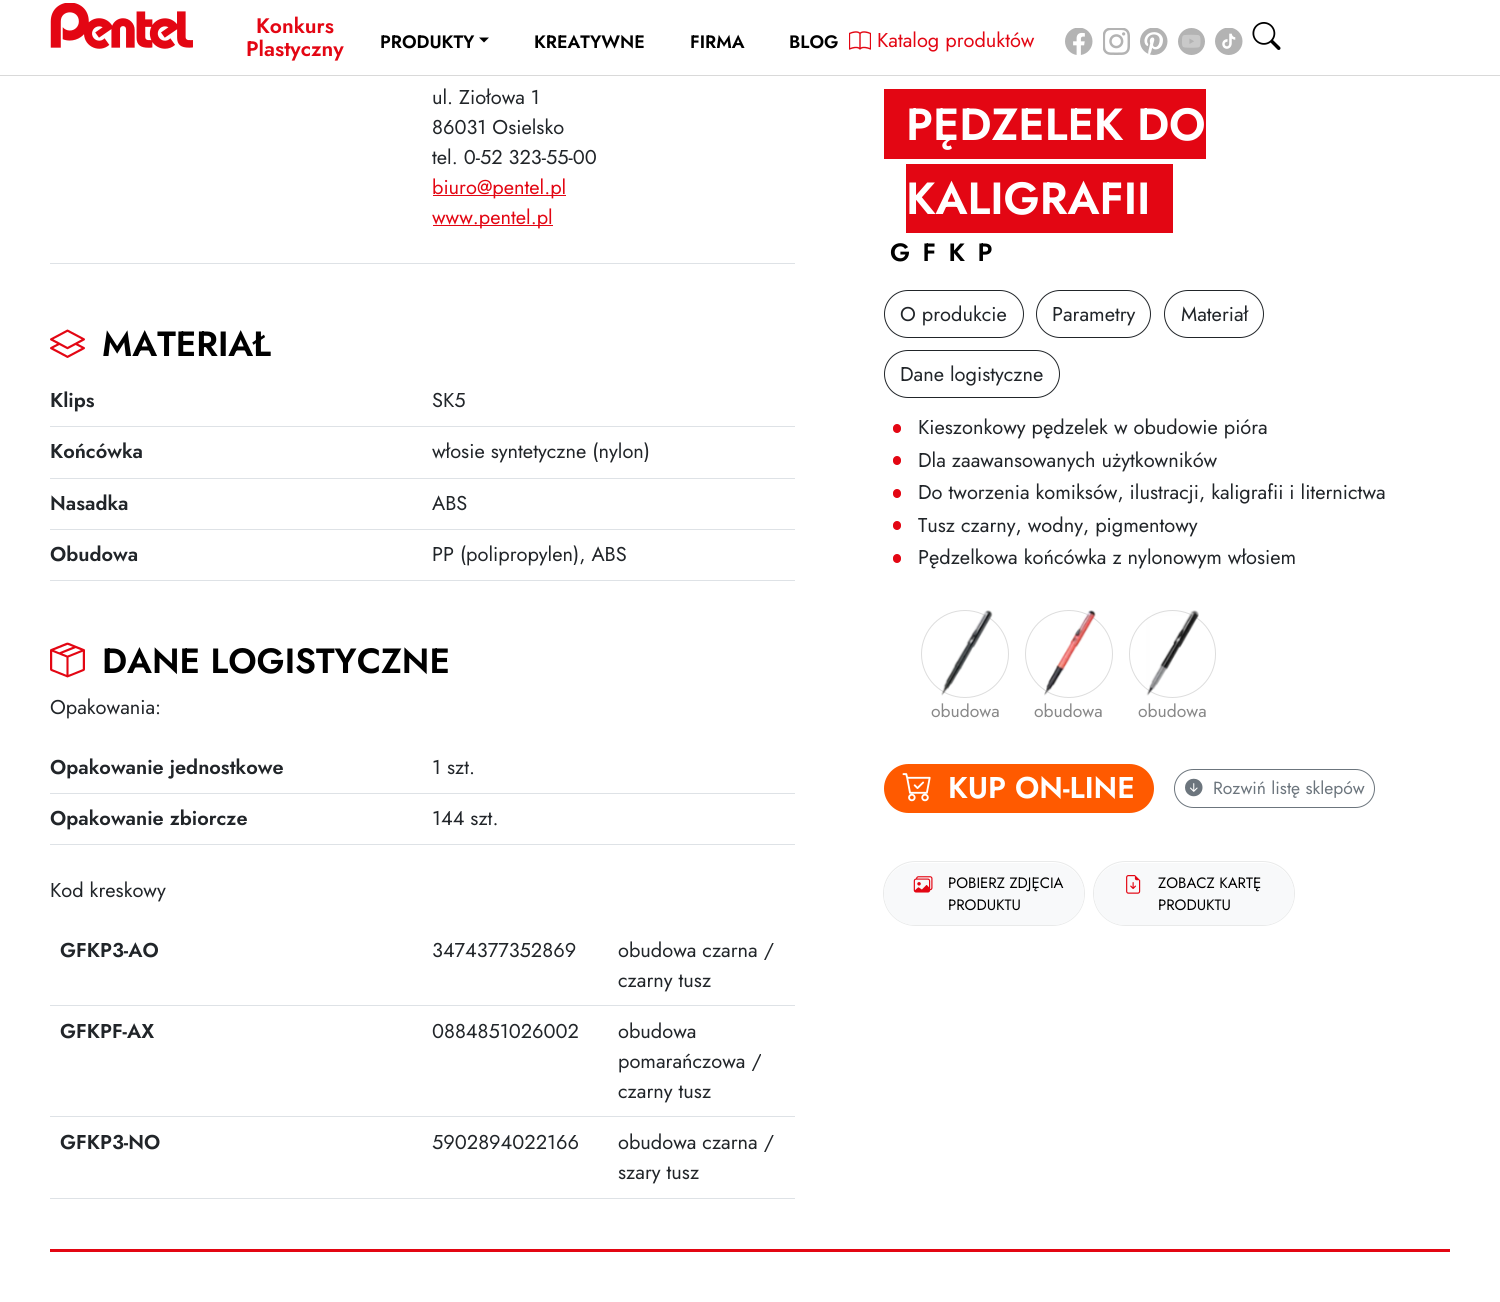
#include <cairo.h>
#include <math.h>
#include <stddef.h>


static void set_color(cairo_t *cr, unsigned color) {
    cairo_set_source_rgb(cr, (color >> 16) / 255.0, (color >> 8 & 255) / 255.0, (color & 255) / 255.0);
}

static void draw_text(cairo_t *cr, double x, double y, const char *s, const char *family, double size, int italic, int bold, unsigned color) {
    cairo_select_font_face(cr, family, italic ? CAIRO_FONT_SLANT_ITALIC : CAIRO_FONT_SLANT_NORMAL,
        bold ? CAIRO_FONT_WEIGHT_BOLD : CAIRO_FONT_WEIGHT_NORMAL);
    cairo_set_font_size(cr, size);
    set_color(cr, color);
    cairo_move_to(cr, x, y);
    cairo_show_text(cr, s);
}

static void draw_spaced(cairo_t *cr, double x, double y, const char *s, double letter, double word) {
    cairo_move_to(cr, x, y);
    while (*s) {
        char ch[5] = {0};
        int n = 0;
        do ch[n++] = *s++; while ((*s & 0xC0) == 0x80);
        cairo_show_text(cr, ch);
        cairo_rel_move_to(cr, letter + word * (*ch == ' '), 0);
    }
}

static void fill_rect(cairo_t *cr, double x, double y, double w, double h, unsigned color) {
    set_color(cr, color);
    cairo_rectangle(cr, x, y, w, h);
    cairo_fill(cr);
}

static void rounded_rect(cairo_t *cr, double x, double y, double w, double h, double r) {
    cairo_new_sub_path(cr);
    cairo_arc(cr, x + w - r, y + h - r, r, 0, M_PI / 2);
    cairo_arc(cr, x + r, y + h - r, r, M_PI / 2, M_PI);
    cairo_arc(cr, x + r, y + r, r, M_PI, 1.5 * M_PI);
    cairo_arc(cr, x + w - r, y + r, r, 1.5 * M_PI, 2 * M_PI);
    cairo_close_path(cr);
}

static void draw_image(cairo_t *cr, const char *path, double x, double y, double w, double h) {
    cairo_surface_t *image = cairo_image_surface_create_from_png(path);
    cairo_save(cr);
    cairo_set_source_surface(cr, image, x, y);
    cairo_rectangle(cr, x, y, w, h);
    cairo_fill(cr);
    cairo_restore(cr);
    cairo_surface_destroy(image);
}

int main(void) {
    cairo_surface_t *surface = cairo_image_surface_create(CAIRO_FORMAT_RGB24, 1500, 1302);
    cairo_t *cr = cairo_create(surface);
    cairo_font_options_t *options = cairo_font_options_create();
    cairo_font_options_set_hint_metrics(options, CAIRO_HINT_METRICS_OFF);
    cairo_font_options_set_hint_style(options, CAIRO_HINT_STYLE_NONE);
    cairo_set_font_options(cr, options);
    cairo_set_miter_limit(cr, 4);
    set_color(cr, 0xFFFFFF);
    cairo_paint(cr);
    cairo_set_source_rgba(cr, 0, 0, 0, 0.15);
    cairo_rectangle(cr, 0, 75, 1500, 1);
    cairo_fill(cr);
    draw_image(cr, "assets/img1.png", 50, 3, 143, 46);
    draw_text(cr, 256, 33, "Konkurs", "Jost SemiBold", 21, 0, 0, 0xE30613);
    draw_text(cr, 246, 56, "Plastyczny", "Jost SemiBold", 21, 0, 0, 0xE30613);
    draw_text(cr, 380, 48, "PRODUKTY", "Jost SemiBold", 18, 0, 0, 0x000000);
    cairo_new_path(cr);
    cairo_move_to(cr, 479, 37.5);
    cairo_line_to(cr, 489, 37.5);
    cairo_line_to(cr, 484, 42.5);
    cairo_close_path(cr);
    cairo_fill(cr);
    draw_text(cr, 534, 48, "KREATYWNE", "Jost SemiBold", 18, 0, 0, 0x000000);
    draw_text(cr, 690, 48, "FIRMA", "Jost SemiBold", 18, 0, 0, 0x000000);
    draw_text(cr, 789, 48, "BLOG", "Jost SemiBold", 18, 0, 0, 0x000000);
    draw_image(cr, "assets/img2.png", 849, 31, 22, 19);
    draw_text(cr, 877, 47, "Katalog produktów", "Jost", 20, 0, 0, 0xE30613);
    draw_image(cr, "assets/img3.png", 1065, 28, 28, 27);
    draw_image(cr, "assets/img4.png", 1103, 28, 27, 27);
    draw_image(cr, "assets/img5.png", 1140, 28, 28, 27);
    draw_image(cr, "assets/img6.png", 1178, 28, 27, 27);
    draw_image(cr, "assets/img7.png", 1215, 28, 28, 27);
    draw_image(cr, "assets/img8.png", 1252, 22, 29, 28);
    fill_rect(cr, 50, 263, 745, 1, 0xDEE2E6);
    draw_text(cr, 432, 104, "ul. Ziołowa 1", "Jost", 20, 0, 0, 0x212529);
    draw_text(cr, 432, 134, "86031 Osielsko", "Jost", 20, 0, 0, 0x212529);
    draw_text(cr, 432, 164, "tel. 0-52 323-55-00", "Jost", 20, 0, 0, 0x212529);
    fill_rect(cr, 433, 195, 133, 1, 0xE30613);
    draw_text(cr, 432, 194, "biuro@pentel.pl", "Jost", 20, 0, 0, 0xE30613);
    fill_rect(cr, 433, 225, 120, 1, 0xE30613);
    draw_text(cr, 432, 224, "www.pentel.pl", "Jost", 20, 0, 0, 0xE30613);
    draw_image(cr, "assets/img9.png", 50, 329, 35, 29);
    draw_text(cr, 102, 356, "MATERIAŁ", "Jost SemiBold", 35, 0, 0, 0x000000);
    draw_text(cr, 50, 407, "Klips", "Jost SemiBold", 20, 0, 0, 0x212529);
    fill_rect(cr, 50, 426, 745, 1, 0xDEE2E6);
    draw_text(cr, 432, 407, "SK5", "Jost", 20, 0, 0, 0x212529);
    draw_text(cr, 50, 458, "Końcówka", "Jost SemiBold", 20, 0, 0, 0x212529);
    fill_rect(cr, 50, 478, 745, 1, 0xDEE2E6);
    draw_text(cr, 432, 458, "włosie syntetyczne (nylon)", "Jost", 20, 0, 0, 0x212529);
    draw_text(cr, 50, 510, "Nasadka", "Jost SemiBold", 20, 0, 0, 0x212529);
    fill_rect(cr, 50, 529, 745, 1, 0xDEE2E6);
    draw_text(cr, 432, 510, "ABS", "Jost", 20, 0, 0, 0x212529);
    draw_text(cr, 50, 561, "Obudowa", "Jost SemiBold", 20, 0, 0, 0x212529);
    fill_rect(cr, 50, 580, 745, 1, 0xDEE2E6);
    draw_text(cr, 432, 561, "PP (polipropylen), ABS", "Jost", 20, 0, 0, 0x212529);
    draw_image(cr, "assets/img10.png", 50, 642, 35, 36);
    draw_text(cr, 102, 673, "DANE LOGISTYCZNE", "Jost SemiBold", 35, 0, 0, 0x000000);
    draw_text(cr, 50, 714, "Opakowania:", "Jost", 20, 0, 0, 0x212529);
    draw_text(cr, 50, 774, "Opakowanie jednostkowe", "Jost SemiBold", 20, 0, 0, 0x212529);
    fill_rect(cr, 50, 793, 745, 1, 0xDEE2E6);
    draw_text(cr, 432, 774, "1 szt.", "Jost", 20, 0, 0, 0x212529);
    draw_text(cr, 50, 825, "Opakowanie zbiorcze", "Jost SemiBold", 20, 0, 0, 0x212529);
    fill_rect(cr, 50, 844, 745, 1, 0xDEE2E6);
    draw_text(cr, 432, 825, "144 szt.", "Jost", 20, 0, 0, 0x212529);
    draw_text(cr, 50, 897, "Kod kreskowy", "Jost", 20, 0, 0, 0x212529);
    draw_text(cr, 60, 957, "GFKP3-AO", "Jost SemiBold", 20, 0, 0, 0x212529);
    draw_text(cr, 432, 957, "3474377352869", "Jost", 20, 0, 0, 0x212529);
    fill_rect(cr, 50, 1005, 745, 1, 0xDEE2E6);
    draw_text(cr, 618, 957, "obudowa czarna /", "Jost", 20, 0, 0, 0x212529);
    draw_text(cr, 618, 987, "czarny tusz", "Jost", 20, 0, 0, 0x212529);
    draw_text(cr, 60, 1038, "GFKPF-AX", "Jost SemiBold", 20, 0, 0, 0x212529);
    draw_text(cr, 432, 1038, "0884851026002", "Jost", 20, 0, 0, 0x212529);
    fill_rect(cr, 50, 1116, 745, 1, 0xDEE2E6);
    draw_text(cr, 618, 1038, "obudowa", "Jost", 20, 0, 0, 0x212529);
    draw_text(cr, 618, 1068, "pomarańczowa /", "Jost", 20, 0, 0, 0x212529);
    draw_text(cr, 618, 1098, "czarny tusz", "Jost", 20, 0, 0, 0x212529);
    draw_text(cr, 60, 1149, "GFKP3-NO", "Jost SemiBold", 20, 0, 0, 0x212529);
    draw_text(cr, 432, 1149, "5902894022166", "Jost", 20, 0, 0, 0x212529);
    fill_rect(cr, 50, 1198, 745, 1, 0xDEE2E6);
    draw_text(cr, 618, 1149, "obudowa czarna /", "Jost", 20, 0, 0, 0x212529);
    draw_text(cr, 618, 1179, "szary tusz", "Jost", 20, 0, 0, 0x212529);
    fill_rect(cr, 884, 89, 322, 70, 0xE30613);
    draw_text(cr, 906, 140, "PĘDZELEK DO", "Jost SemiBold", 45, 0, 0, 0xFFFFFF);
    fill_rect(cr, 906, 164, 267, 69, 0xE30613);
    draw_text(cr, 906, 214, "KALIGRAFII", "Jost SemiBold", 45, 0, 0, 0xFFFFFF);
    cairo_set_font_size(cr, 25);
    set_color(cr, 0x000000);
    draw_spaced(cr, 890, 261, "GFKP", 12.5, 0);
    rounded_rect(cr, 884.5, 290.5, 139, 47, 23.5);
    set_color(cr, 0x212529);
    cairo_set_line_width(cr, 1);
    cairo_stroke(cr);
    draw_text(cr, 900, 321, "O produkcie", "Jost", 20, 0, 0, 0x212529);
    rounded_rect(cr, 1036.5, 290.5, 114, 47, 23.5);
    cairo_stroke(cr);
    draw_text(cr, 1052, 321, "Parametry", "Jost", 20, 0, 0, 0x212529);
    rounded_rect(cr, 1164.5, 290.5, 99, 47, 23.5);
    cairo_stroke(cr);
    draw_text(cr, 1181, 321, "Materiał", "Jost", 20, 0, 0, 0x212529);
    rounded_rect(cr, 884.5, 350.5, 175, 47, 23.5);
    cairo_stroke(cr);
    draw_text(cr, 900, 381, "Dane logistyczne", "Jost", 20, 0, 0, 0x212529);
    set_color(cr, 0xE30613);
    rounded_rect(cr, 893, 424, 8, 9, 4);
    cairo_fill(cr);
    draw_text(cr, 918, 434, "Kieszonkowy pędzelek w obudowie pióra", "Jost", 20, 0, 0, 0x212529);
    set_color(cr, 0xE30613);
    rounded_rect(cr, 893, 456, 8, 9, 4);
    cairo_fill(cr);
    draw_text(cr, 918, 467, "Dla zaawansowanych użytkowników", "Jost", 20, 0, 0, 0x212529);
    set_color(cr, 0xE30613);
    rounded_rect(cr, 893, 489, 8, 9, 4);
    cairo_fill(cr);
    draw_text(cr, 918, 499, "Do tworzenia komiksów, ilustracji, kaligrafii i liternictwa", "Jost", 20, 0, 0, 0x212529);
    set_color(cr, 0xE30613);
    rounded_rect(cr, 893, 521, 8, 9, 4);
    cairo_fill(cr);
    draw_text(cr, 918, 532, "Tusz czarny, wodny, pigmentowy", "Jost", 20, 0, 0, 0x212529);
    set_color(cr, 0xE30613);
    rounded_rect(cr, 893, 554, 8, 9, 4);
    cairo_fill(cr);
    draw_text(cr, 918, 564, "Pędzelkowa końcówka z nylonowym włosiem", "Jost", 20, 0, 0, 0x212529);
    cairo_new_path(cr);
    cairo_arc(cr, 965, 654, 43.5, 0, 2 * M_PI);
    set_color(cr, 0xDDDDDD);
    cairo_stroke(cr);
    draw_image(cr, "assets/img11.png", 941, 610, 52, 86);
    draw_text(cr, 931, 717, "obudowa", "Jost", 17.5, 0, 0, 0x888888);
    cairo_new_path(cr);
    cairo_arc(cr, 1069, 654, 43.5, 0, 2 * M_PI);
    set_color(cr, 0xDDDDDD);
    cairo_stroke(cr);
    draw_image(cr, "assets/img12.png", 1044, 610, 52, 86);
    draw_text(cr, 1034, 717, "obudowa", "Jost", 17.5, 0, 0, 0x888888);
    rounded_rect(cr, 1129.5, 610.5, 86, 87, 43);
    set_color(cr, 0xDDDDDD);
    cairo_stroke(cr);
    draw_image(cr, "assets/img13.png", 1146, 610, 53, 86);
    draw_text(cr, 1138, 717, "obudowa", "Jost", 17.5, 0, 0, 0x888888);
    set_color(cr, 0xFF5A00);
    rounded_rect(cr, 884, 764, 270, 49, 24.5);
    cairo_fill(cr);
    draw_image(cr, "assets/img14.png", 902, 773, 29, 29);
    draw_text(cr, 948, 798, "KUP ON-LINE", "Jost SemiBold", 30, 0, 0, 0xFFFFFF);
    rounded_rect(cr, 1174.5, 769.5, 200, 38, 19);
    set_color(cr, 0x6C757D);
    cairo_stroke(cr);
    draw_image(cr, "assets/img15.png", 1185, 778, 18, 19);
    draw_text(cr, 1213, 794, "Rozwiń listę sklepów", "Jost", 17.5, 0, 0, 0x6C757D);
    rounded_rect(cr, 883.5, 861.5, 201, 64, 32);
    set_color(cr, 0xE9EAEA);
    cairo_stroke(cr);
    set_color(cr, 0xF8F9FA);
    rounded_rect(cr, 884.5, 863.5, 199, 61, 30.5);
    cairo_fill_preserve(cr);
    cairo_stroke(cr);
    draw_image(cr, "assets/img16.png", 913, 876, 20, 17);
    draw_text(cr, 948, 888, "POBIERZ ZDJĘCIA", "Jost", 15, 0, 0, 0x000000);
    draw_text(cr, 948, 910, "PRODUKTU", "Jost", 15, 0, 0, 0x000000);
    rounded_rect(cr, 1093.5, 861.5, 201, 64, 32);
    set_color(cr, 0xE9EAEA);
    cairo_stroke(cr);
    set_color(cr, 0xF8F9FA);
    rounded_rect(cr, 1094.5, 863.5, 199, 61, 30.5);
    cairo_fill_preserve(cr);
    cairo_stroke(cr);
    draw_image(cr, "assets/img17.png", 1126, 875, 15, 19);
    draw_text(cr, 1158, 888, "ZOBACZ KARTĘ", "Jost", 15, 0, 0, 0x000000);
    draw_text(cr, 1158, 910, "PRODUKTU", "Jost", 15, 0, 0, 0x000000);
    fill_rect(cr, 50, 1249, 1400, 3, 0xE30613);
    cairo_surface_write_to_png(surface, "output.png");
    cairo_font_options_destroy(options);
    cairo_destroy(cr);
    cairo_surface_destroy(surface);
    return 0;
}
